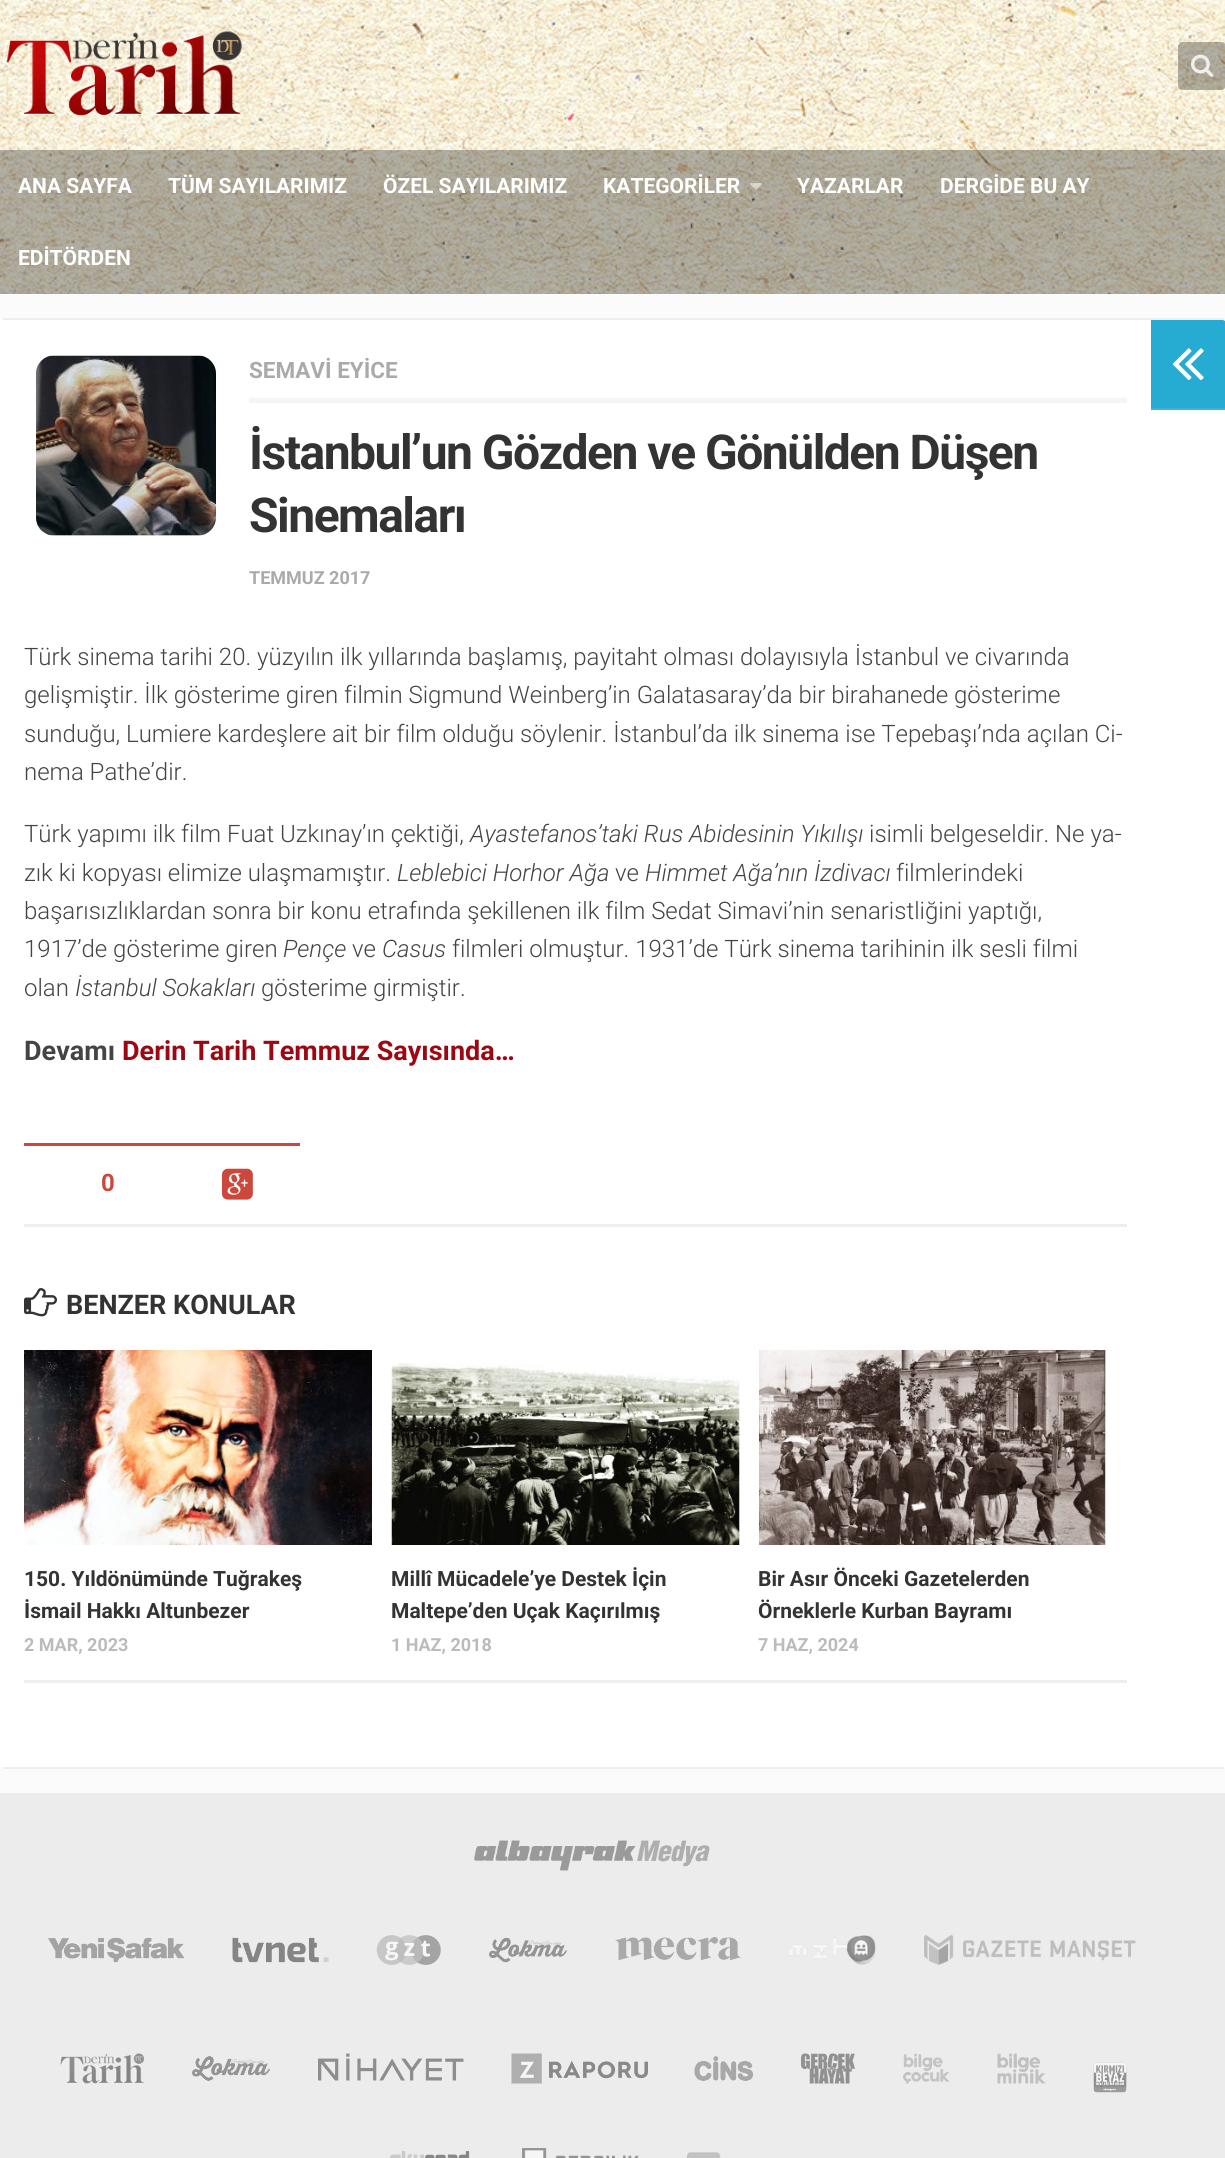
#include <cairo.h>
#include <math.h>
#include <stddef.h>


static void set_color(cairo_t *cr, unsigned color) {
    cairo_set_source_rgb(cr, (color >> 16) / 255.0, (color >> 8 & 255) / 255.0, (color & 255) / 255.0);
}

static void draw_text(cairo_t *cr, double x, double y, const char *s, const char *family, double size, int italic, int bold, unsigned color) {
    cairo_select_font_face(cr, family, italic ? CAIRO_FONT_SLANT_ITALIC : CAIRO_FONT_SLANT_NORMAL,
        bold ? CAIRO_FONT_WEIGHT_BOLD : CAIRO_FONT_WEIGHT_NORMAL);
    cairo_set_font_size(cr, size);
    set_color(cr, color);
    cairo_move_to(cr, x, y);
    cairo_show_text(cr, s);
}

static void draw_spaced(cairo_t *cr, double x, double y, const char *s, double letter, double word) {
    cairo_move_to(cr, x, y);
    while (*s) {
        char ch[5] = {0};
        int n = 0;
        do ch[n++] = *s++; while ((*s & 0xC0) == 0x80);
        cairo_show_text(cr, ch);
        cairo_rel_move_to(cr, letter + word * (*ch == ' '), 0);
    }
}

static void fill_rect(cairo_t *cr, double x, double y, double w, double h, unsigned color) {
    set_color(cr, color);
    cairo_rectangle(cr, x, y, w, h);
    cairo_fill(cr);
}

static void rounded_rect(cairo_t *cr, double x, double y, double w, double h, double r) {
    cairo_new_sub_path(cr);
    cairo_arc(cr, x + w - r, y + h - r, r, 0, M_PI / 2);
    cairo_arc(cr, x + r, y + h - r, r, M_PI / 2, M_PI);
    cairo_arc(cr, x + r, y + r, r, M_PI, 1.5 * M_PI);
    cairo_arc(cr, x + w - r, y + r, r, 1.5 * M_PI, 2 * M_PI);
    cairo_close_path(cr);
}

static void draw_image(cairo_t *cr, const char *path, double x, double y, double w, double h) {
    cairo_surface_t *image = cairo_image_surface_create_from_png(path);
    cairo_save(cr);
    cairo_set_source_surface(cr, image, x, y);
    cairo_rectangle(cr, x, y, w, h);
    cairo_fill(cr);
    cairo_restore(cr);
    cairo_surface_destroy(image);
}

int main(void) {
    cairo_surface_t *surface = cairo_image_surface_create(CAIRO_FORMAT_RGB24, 1225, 2158);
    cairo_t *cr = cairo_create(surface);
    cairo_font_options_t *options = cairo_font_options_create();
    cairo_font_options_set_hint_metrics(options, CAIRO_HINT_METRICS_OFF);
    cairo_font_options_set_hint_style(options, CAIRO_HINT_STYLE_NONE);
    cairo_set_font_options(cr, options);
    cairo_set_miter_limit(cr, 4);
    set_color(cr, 0xFBFBFB);
    cairo_paint(cr);
    draw_image(cr, "assets/img1.png", 0, 0, 1225, 294);
    draw_image(cr, "assets/img2.png", 2, 31, 240, 86);
    cairo_set_source_rgba(cr, 0, 0, 0, 0.3);
    rounded_rect(cr, 1178, 42, 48, 48, 5);
    cairo_fill(cr);
    draw_image(cr, "assets/img3.png", 1191, 54, 23, 23);
    cairo_rectangle(cr, 0, 150, 1225, 144);
    cairo_fill(cr);
    draw_text(cr, 18, 193, "ANA SAYFA", "Roboto", 21, 0, 1, 0xFFFFFF);
    draw_text(cr, 168, 193, "TÜM SAYILARIMIZ", "Roboto", 21, 0, 1, 0xFFFFFF);
    draw_text(cr, 383, 193, "ÖZEL SAYILARIMIZ", "Roboto", 21, 0, 1, 0xFFFFFF);
    draw_text(cr, 603, 193, "KATEGORİLER", "Roboto", 21, 0, 1, 0xFFFFFF);
    draw_image(cr, "assets/img4.png", 750, 183, 12, 7);
    draw_text(cr, 797, 193, "YAZARLAR", "Roboto", 21, 0, 1, 0xFFFFFF);
    draw_text(cr, 940, 193, "DERGİDE BU AY", "Roboto", 21, 0, 1, 0xFFFFFF);
    draw_text(cr, 18, 265, "EDİTÖRDEN", "Roboto", 21, 0, 1, 0xFFFFFF);
    rounded_rect(cr, 0, 318, 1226, 1451, 5);
    cairo_fill(cr);
    fill_rect(cr, 3, 318, 1221, 2, 0xEEEEEE);
    fill_rect(cr, 3, 1767, 1221, 2, 0xEEEEEE);
    fill_rect(cr, 249, 398, 878, 5, 0xF5F5F5);
    draw_text(cr, 249, 378, "SEMAVİ EYİCE", "Roboto", 22.5, 0, 1, 0xAAAAAA);
    set_color(cr, 0xEEEEEE);
    rounded_rect(cr, 36, 356, 180, 180, 18);
    cairo_fill(cr);
    draw_image(cr, "assets/img5.png", 36, 355, 180, 181);
    cairo_set_font_size(cr, 48);
    set_color(cr, 0x333333);
    draw_spaced(cr, 249, 469, "İstanbul’un Gözden ve Gönülden Düşen", -1.5, 0);
    draw_spaced(cr, 249, 532, "Sinemaları", -1.5, 0);
    draw_text(cr, 249, 584, "TEMMUZ 2017", "Roboto", 18, 0, 1, 0xAAAAAA);
    draw_text(cr, 24, 665, "Türk sinema tarihi 20. yüzyılın ilk yıllarında başlamış, payitaht olması dolayısıyla İstanbul ve civarında", "Roboto Light", 24, 0, 0, 0x444444);
    draw_text(cr, 24, 703, "gelişmiştir. İlk gösterime giren filmin Sigmund Weinberg’in Galatasaray’da bir birahanede gösterime", "Roboto Light", 24, 0, 0, 0x444444);
    draw_text(cr, 24, 742, "sunduğu, Lumiere kardeşlere ait bir film olduğu söylenir. İstanbul’da ilk sinema ise Tepebaşı’nda açılan Ci-", "Roboto Light", 24, 0, 0, 0x444444);
    draw_text(cr, 24, 780, "nema Pathe’dir.", "Roboto Light", 24, 0, 0, 0x444444);
    draw_text(cr, 24, 842, "Türk yapımı ilk film Fuat Uzkınay’ın çektiği,", "Roboto Light", 24, 0, 0, 0x444444);
    draw_text(cr, 470, 842, "Ayastefanos’taki Rus Abidesinin Yıkılışı", "Roboto Light", 24, 1, 0, 0x444444);
    draw_text(cr, 869, 842, "isimli belgeseldir. Ne ya-", "Roboto Light", 24, 0, 0, 0x444444);
    draw_text(cr, 24, 881, "zık ki kopyası elimize ulaşmamıştır.", "Roboto Light", 24, 0, 0, 0x444444);
    draw_text(cr, 397, 881, "Leblebici Horhor Ağa", "Roboto Light", 24, 1, 0, 0x444444);
    draw_text(cr, 615, 881, "ve", "Roboto Light", 24, 0, 0, 0x444444);
    draw_text(cr, 645, 881, "Himmet Ağa’nın İzdivacı", "Roboto Light", 24, 1, 0, 0x444444);
    draw_text(cr, 896, 881, "filmlerindeki", "Roboto Light", 24, 0, 0, 0x444444);
    draw_text(cr, 24, 919, "başarısızlıklardan sonra bir konu etrafında şekillenen ilk film Sedat Simavi’nin senaristliğini yaptığı,", "Roboto Light", 24, 0, 0, 0x444444);
    draw_text(cr, 24, 957, "1917’de gösterime giren", "Roboto Light", 24, 0, 0, 0x444444);
    draw_text(cr, 283, 957, "Pençe", "Roboto Light", 24, 1, 0, 0x444444);
    draw_text(cr, 352, 957, "ve", "Roboto Light", 24, 0, 0, 0x444444);
    draw_text(cr, 382, 957, "Casus", "Roboto Light", 24, 1, 0, 0x444444);
    draw_text(cr, 452, 957, "filmleri olmuştur. 1931’de Türk sinema tarihinin ilk sesli filmi", "Roboto Light", 24, 0, 0, 0x444444);
    draw_text(cr, 24, 996, "olan", "Roboto Light", 24, 0, 0, 0x444444);
    draw_text(cr, 75, 996, "İstanbul Sokakları", "Roboto Light", 24, 1, 0, 0x444444);
    draw_text(cr, 261, 996, "gösterime girmiştir.", "Roboto Light", 24, 0, 0, 0x444444);
    draw_text(cr, 24, 1060, "Devamı", "Roboto", 27, 0, 1, 0x444444);
    draw_text(cr, 122, 1060, "Derin Tarih Temmuz Sayısında…", "Roboto", 27, 0, 1, 0x9C0711);
    fill_rect(cr, 24, 1224, 1103, 3, 0xEEEEEE);
    fill_rect(cr, 24, 1143, 276, 3, 0xCD483C);
    draw_text(cr, 101, 1191, "0", "Roboto", 24, 0, 1, 0xCD483C);
    draw_image(cr, "assets/img6.png", 222, 1168, 31, 32);
    draw_image(cr, "assets/img7.png", 24, 1288, 33, 29);
    draw_text(cr, 66, 1314, "BENZER KONULAR", "Roboto", 27, 0, 1, 0x333333);
    fill_rect(cr, 24, 1680, 1103, 3, 0xEEEEEE);
    draw_image(cr, "assets/img8.png", 24, 1350, 348, 195);
    draw_text(cr, 24, 1586, "150. Yıldönümünde Tuğrakeş", "Roboto", 21, 0, 1, 0x333333);
    draw_text(cr, 24, 1618, "İsmail Hakkı Altunbezer", "Roboto", 21, 0, 1, 0x333333);
    draw_text(cr, 24, 1651, "2 MAR, 2023", "Roboto", 18, 0, 1, 0xBBBBBB);
    draw_image(cr, "assets/img9.png", 391, 1363, 349, 182);
    draw_text(cr, 391, 1586, "Millî Mücadele’ye Destek İçin", "Roboto", 21, 0, 1, 0x333333);
    draw_text(cr, 391, 1618, "Maltepe’den Uçak Kaçırılmış", "Roboto", 21, 0, 1, 0x333333);
    draw_text(cr, 391, 1651, "1 HAZ, 2018", "Roboto", 18, 0, 1, 0xBBBBBB);
    draw_image(cr, "assets/img10.png", 759, 1350, 347, 195);
    draw_text(cr, 758, 1586, "Bir Asır Önceki Gazetelerden", "Roboto", 21, 0, 1, 0x333333);
    draw_text(cr, 758, 1618, "Örneklerle Kurban Bayramı", "Roboto", 21, 0, 1, 0x333333);
    draw_text(cr, 758, 1651, "7 HAZ, 2024", "Roboto", 18, 0, 1, 0xBBBBBB);
    set_color(cr, 0x26ABD3);
    cairo_new_path(cr);
    cairo_move_to(cr, 1151, 320);
    cairo_line_to(cr, 1223, 320);
    cairo_curve_to(cr, 1225, 321, 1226, 321, 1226, 322);
    cairo_line_to(cr, 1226, 410);
    cairo_line_to(cr, 1151, 410);
    cairo_close_path(cr);
    cairo_fill(cr);
    fill_rect(cr, 1151, 408, 74, 2, 0x3CB3D7);
    draw_image(cr, "assets/img11.png", 1172, 348, 32, 32);
    fill_rect(cr, 0, 1793, 1225, 365, 0xECECEC);
    draw_image(cr, "assets/img12.png", 474, 1840, 236, 31);
    draw_image(cr, "assets/img13.png", 48, 1937, 137, 26);
    draw_image(cr, "assets/img14.png", 232, 1937, 97, 26);
    draw_image(cr, "assets/img15.png", 376, 1935, 65, 30);
    draw_image(cr, "assets/img16.png", 489, 1937, 78, 26);
    draw_image(cr, "assets/img17.png", 615, 1937, 126, 24);
    draw_image(cr, "assets/img18.png", 789, 1935, 87, 30);
    draw_image(cr, "assets/img19.png", 924, 1935, 212, 30);
    draw_image(cr, "assets/img20.png", 59, 2053, 85, 31);
    draw_image(cr, "assets/img21.png", 192, 2056, 78, 25);
    draw_image(cr, "assets/img22.png", 318, 2053, 146, 28);
    draw_image(cr, "assets/img23.png", 511, 2053, 137, 31);
    draw_image(cr, "assets/img24.png", 694, 2056, 59, 25);
    draw_image(cr, "assets/img25.png", 801, 2053, 54, 31);
    draw_image(cr, "assets/img26.png", 903, 2053, 47, 31);
    draw_image(cr, "assets/img27.png", 997, 2053, 49, 31);
    draw_image(cr, "assets/img28.png", 1093, 2062, 34, 31);
    draw_image(cr, "assets/img29.png", 390, 2151, 80, 7);
    draw_image(cr, "assets/img30.png", 522, 2148, 117, 10);
    draw_image(cr, "assets/img31.png", 687, 2152, 34, 6);
    cairo_surface_write_to_png(surface, "output.png");
    cairo_font_options_destroy(options);
    cairo_destroy(cr);
    cairo_surface_destroy(surface);
    return 0;
}
